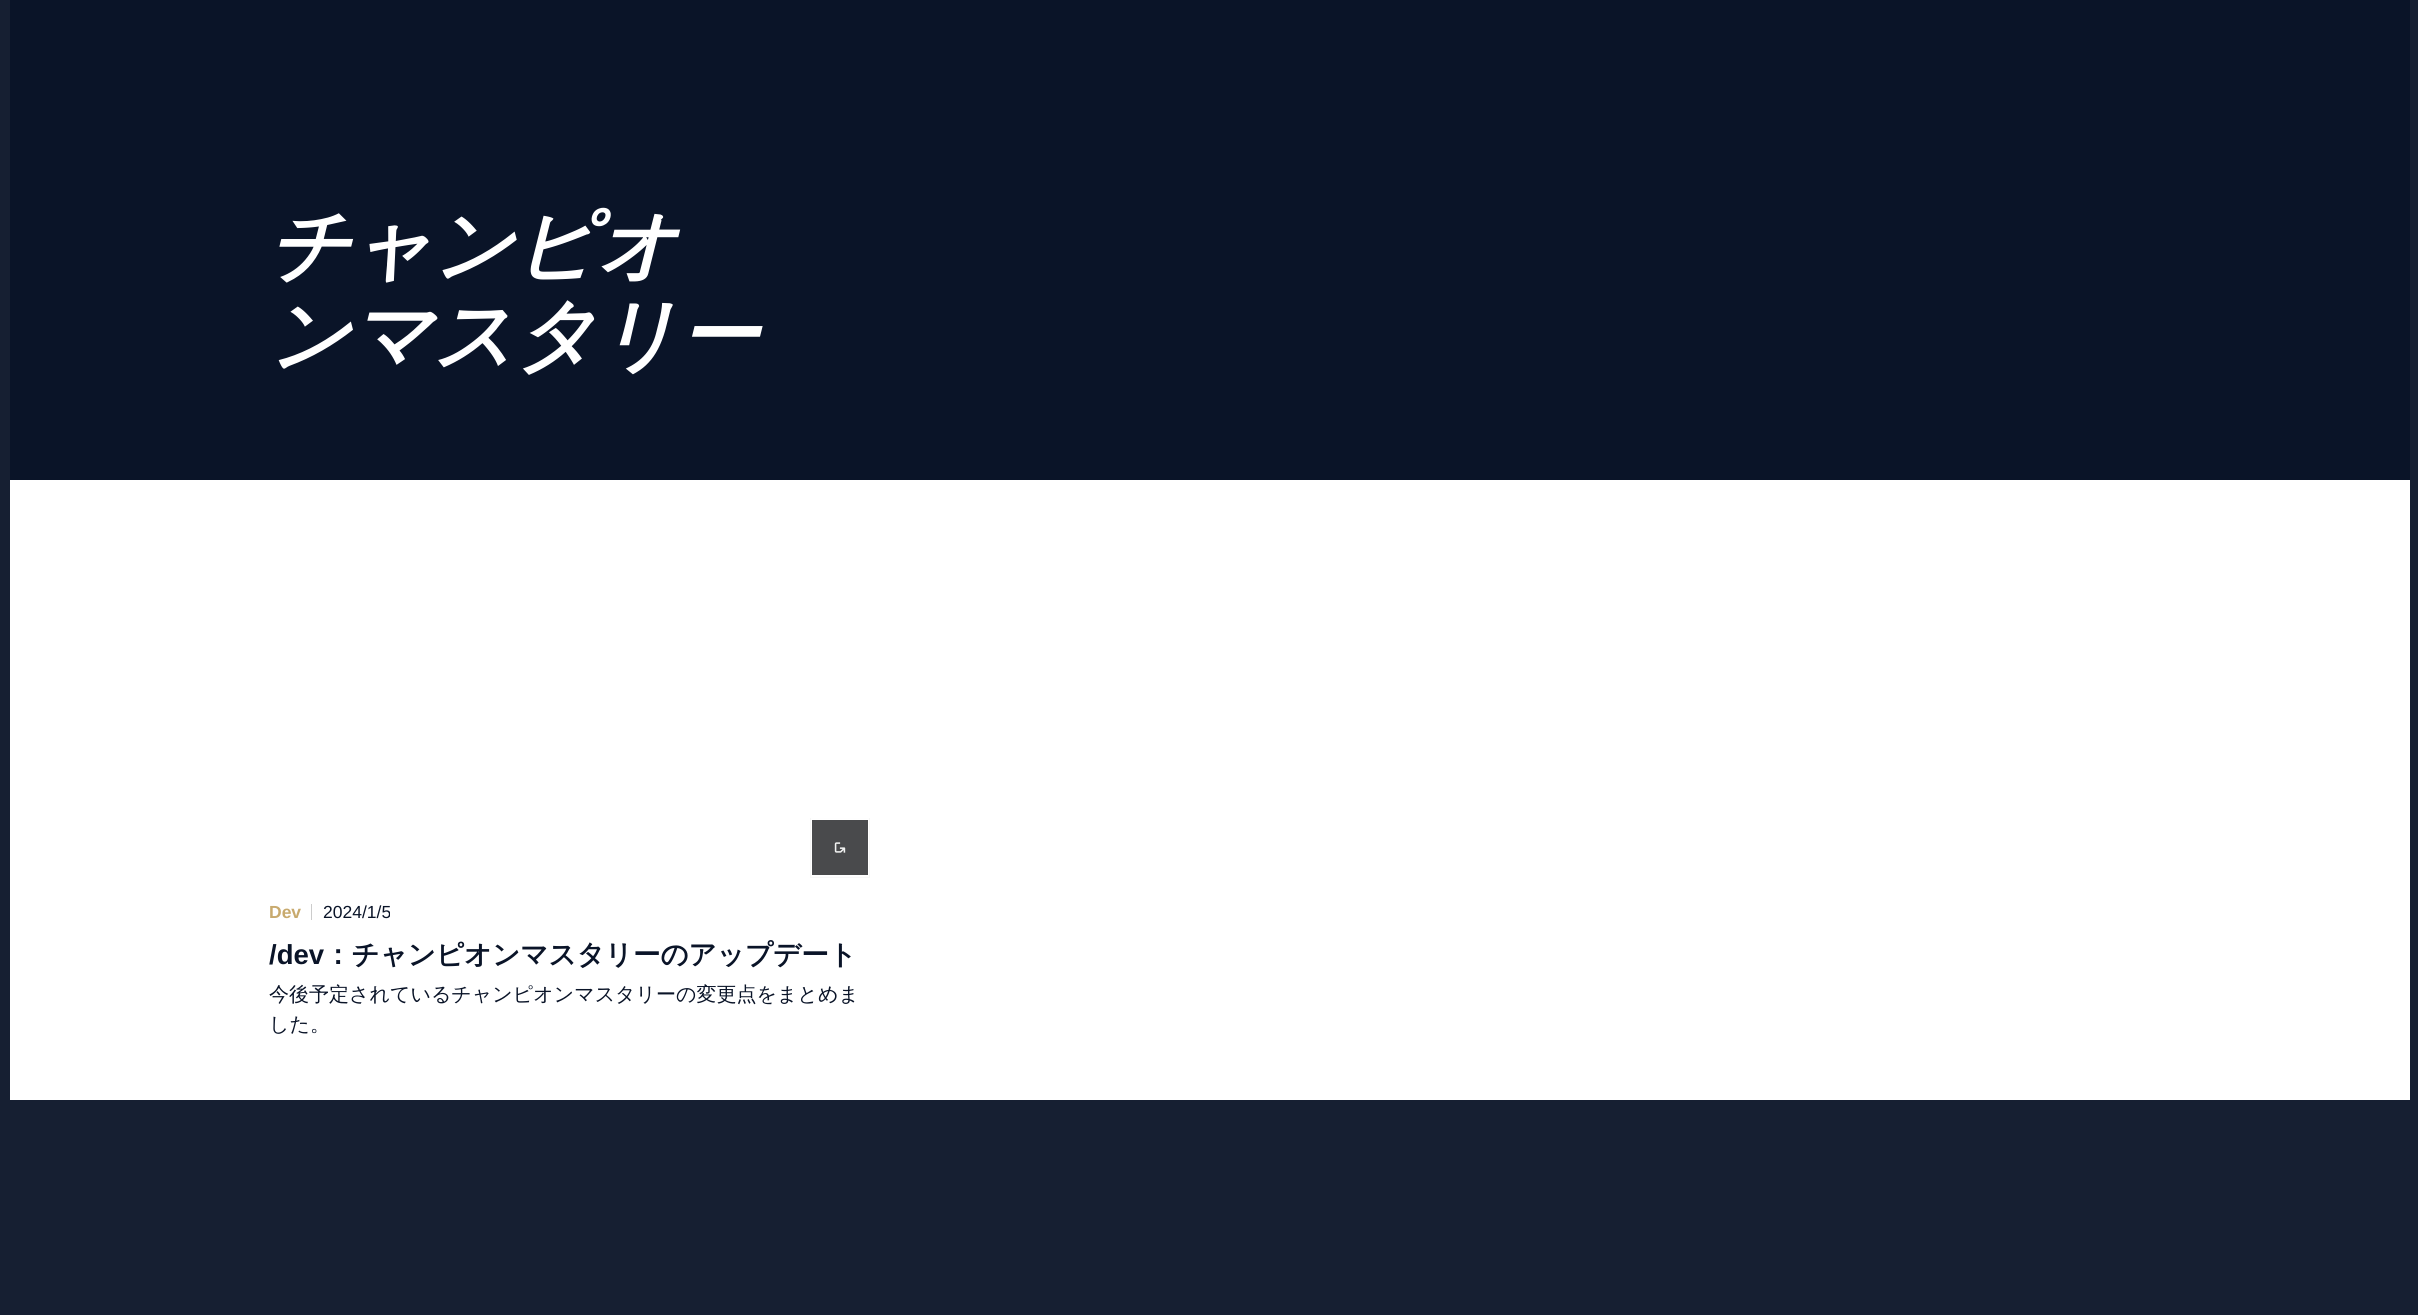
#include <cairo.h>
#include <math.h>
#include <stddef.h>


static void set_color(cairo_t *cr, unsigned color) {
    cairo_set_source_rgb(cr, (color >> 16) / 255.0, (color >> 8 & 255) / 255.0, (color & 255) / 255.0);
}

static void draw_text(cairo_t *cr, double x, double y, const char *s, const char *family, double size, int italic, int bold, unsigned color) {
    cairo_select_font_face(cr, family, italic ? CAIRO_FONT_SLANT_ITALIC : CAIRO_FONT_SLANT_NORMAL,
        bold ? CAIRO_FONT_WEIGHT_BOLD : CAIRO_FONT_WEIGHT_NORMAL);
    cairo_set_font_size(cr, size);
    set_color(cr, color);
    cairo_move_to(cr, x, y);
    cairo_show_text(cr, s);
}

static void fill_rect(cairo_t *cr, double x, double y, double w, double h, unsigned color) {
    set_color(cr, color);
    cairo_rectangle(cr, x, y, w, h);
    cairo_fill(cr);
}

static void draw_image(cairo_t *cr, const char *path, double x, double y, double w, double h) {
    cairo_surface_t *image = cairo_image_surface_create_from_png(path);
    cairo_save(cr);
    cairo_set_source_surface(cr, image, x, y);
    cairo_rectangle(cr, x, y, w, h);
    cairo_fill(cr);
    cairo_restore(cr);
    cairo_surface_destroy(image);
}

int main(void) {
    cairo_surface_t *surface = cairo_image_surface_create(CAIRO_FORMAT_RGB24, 2418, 1315);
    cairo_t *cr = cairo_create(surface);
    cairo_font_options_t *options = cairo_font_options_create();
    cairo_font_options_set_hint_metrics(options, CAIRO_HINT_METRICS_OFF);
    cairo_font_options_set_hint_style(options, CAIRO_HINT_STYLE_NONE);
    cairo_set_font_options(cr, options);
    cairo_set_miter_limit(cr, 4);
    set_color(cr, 0x161F32);
    cairo_paint(cr);
    fill_rect(cr, 10, 0, 2400, 480, 0x0A1428);
    draw_text(cr, 269, 273, "チャンピオ", "WenQuanYi Zen Hei", 80, 1, 1, 0xFFFFFF);
    draw_text(cr, 269, 363, "ンマスタリー", "WenQuanYi Zen Hei", 80, 1, 1, 0xFFFFFF);
    fill_rect(cr, 10, 480, 2400, 620, 0xFFFFFF);
    draw_image(cr, "assets/img1.png", 810, 818, 60, 60);
    draw_text(cr, 269, 918, "Dev", "Liberation Sans", 17.5, 0, 1, 0xC8AA6E);
    fill_rect(cr, 311, 904, 1, 16, 0xCCCCCC);
    draw_text(cr, 323, 918, "2024/1/5", "Liberation Sans", 17.5, 0, 0, 0x0A1428);
    draw_text(cr, 269, 964, "/dev", "Liberation Sans", 27.5, 0, 1, 0x0A1428);
    draw_text(cr, 324, 964, "：チャンピオンマスタリーのアップデート", "WenQuanYi Zen Hei", 27.5, 0, 1, 0x0A1428);
    draw_text(cr, 269, 1001, "今後予定されているチャンピオンマスタリーの変更点をまとめま", "WenQuanYi Zen Hei Medium", 20, 0, 0, 0x0A1428);
    draw_text(cr, 269, 1031, "した。", "WenQuanYi Zen Hei Medium", 20, 0, 0, 0x0A1428);
    cairo_surface_write_to_png(surface, "output.png");
    cairo_font_options_destroy(options);
    cairo_destroy(cr);
    cairo_surface_destroy(surface);
    return 0;
}
